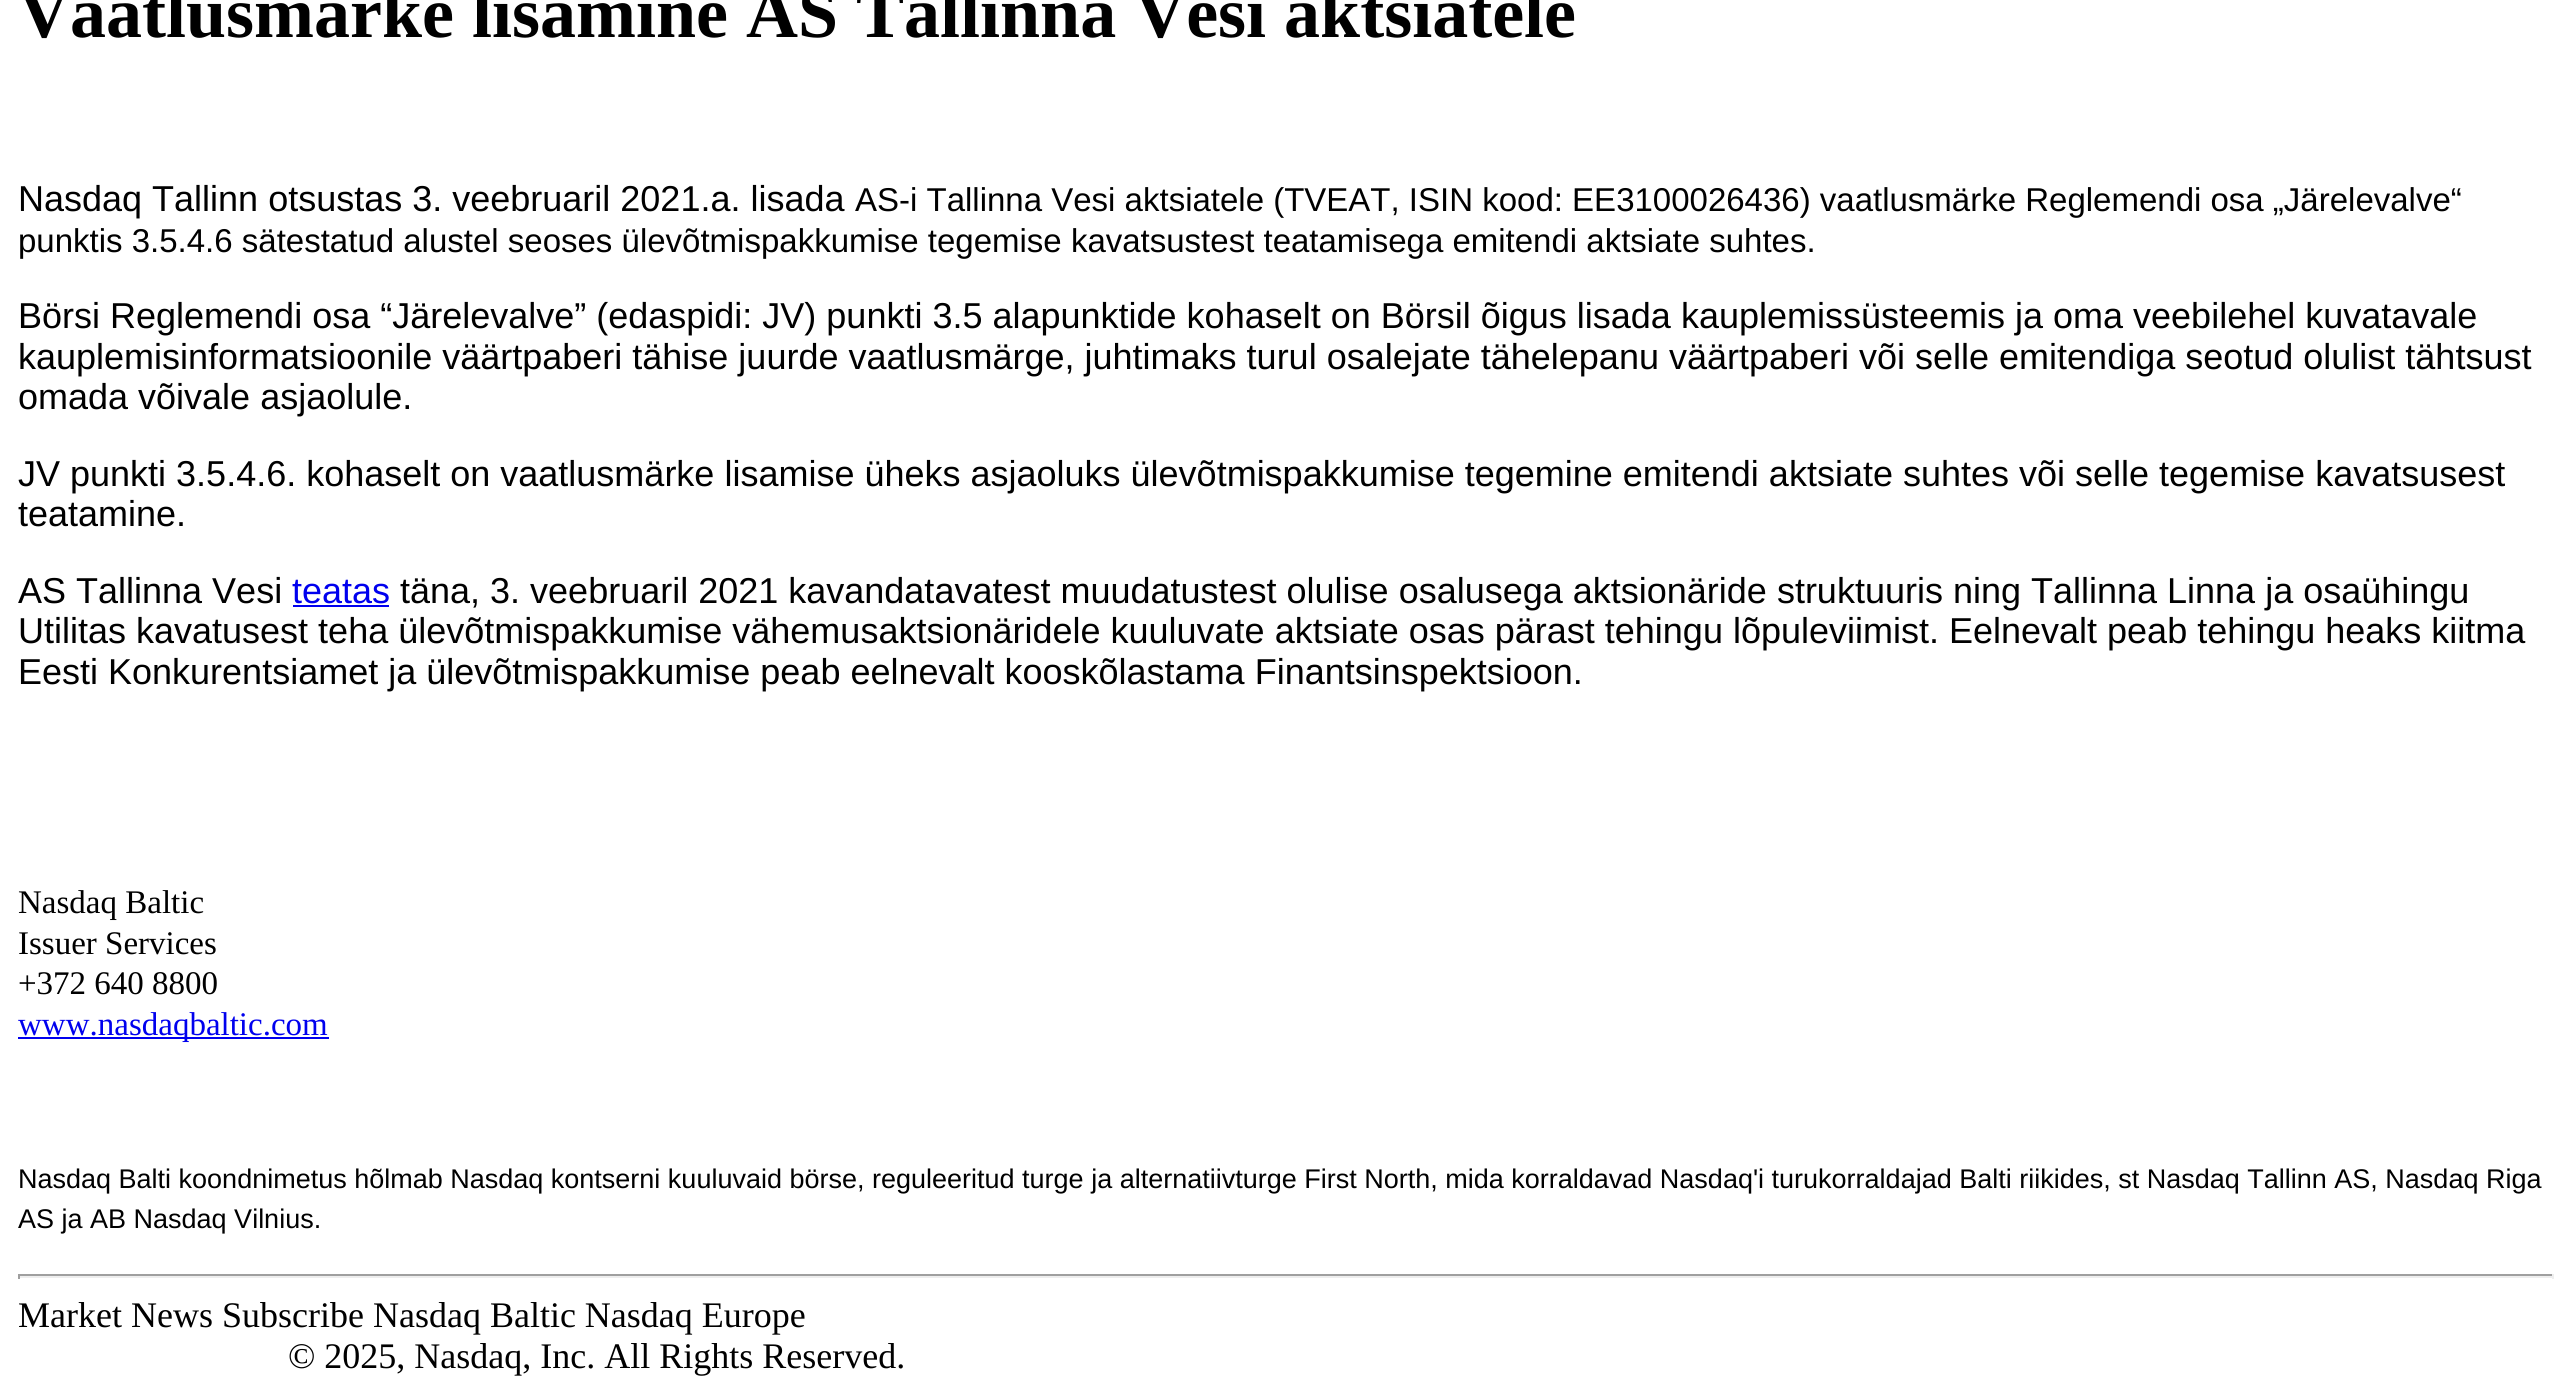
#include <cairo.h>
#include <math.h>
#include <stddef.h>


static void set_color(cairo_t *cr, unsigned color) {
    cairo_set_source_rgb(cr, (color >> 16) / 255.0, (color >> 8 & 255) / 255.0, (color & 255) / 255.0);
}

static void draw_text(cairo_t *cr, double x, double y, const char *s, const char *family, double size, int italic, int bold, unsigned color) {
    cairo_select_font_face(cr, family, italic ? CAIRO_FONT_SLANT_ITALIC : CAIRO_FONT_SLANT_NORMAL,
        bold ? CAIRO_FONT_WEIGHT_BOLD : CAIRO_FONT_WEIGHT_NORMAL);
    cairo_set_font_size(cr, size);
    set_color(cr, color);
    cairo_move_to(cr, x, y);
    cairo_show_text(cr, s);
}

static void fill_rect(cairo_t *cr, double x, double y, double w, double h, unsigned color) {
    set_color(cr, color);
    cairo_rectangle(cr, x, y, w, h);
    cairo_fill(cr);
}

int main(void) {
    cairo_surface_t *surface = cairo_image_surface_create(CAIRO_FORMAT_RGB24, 2570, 1395);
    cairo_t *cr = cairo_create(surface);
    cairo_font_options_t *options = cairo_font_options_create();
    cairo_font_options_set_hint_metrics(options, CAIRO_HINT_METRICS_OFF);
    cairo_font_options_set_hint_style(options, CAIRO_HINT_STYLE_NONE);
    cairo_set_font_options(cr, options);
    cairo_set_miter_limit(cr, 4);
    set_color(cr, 0xFFFFFF);
    cairo_paint(cr);
    draw_text(cr, 18, 37, "Vaatlusmärke lisamine AS Tallinna Vesi aktsiatele", "Liberation Serif", 72, 0, 1, 0x000000);
    draw_text(cr, 18, 211, "Nasdaq Tallinn otsustas 3. veebruaril 2021.a. lisada", "Liberation Sans", 36, 0, 0, 0x000000);
    draw_text(cr, 855, 211, "AS-i Tallinna Vesi aktsiatele (TVEAT, ISIN kood: EE3100026436) vaatlusmärke Reglemendi osa „Järelevalve“", "Liberation Sans", 33, 0, 0, 0x000000);
    draw_text(cr, 18, 252, "punktis 3.5.4.6 sätestatud alustel seoses ülevõtmispakkumise tegemise kavatsustest teatamisega emitendi aktsiate suhtes.", "Liberation Sans", 33, 0, 0, 0x000000);
    draw_text(cr, 18, 328, "Börsi Reglemendi osa “Järelevalve” (edaspidi: JV) punkti 3.5 alapunktide kohaselt on Börsil õigus lisada kauplemissüsteemis ja oma veebilehel kuvatavale", "Liberation Sans", 36, 0, 0, 0x000000);
    draw_text(cr, 18, 369, "kauplemisinformatsioonile väärtpaberi tähise juurde vaatlusmärge, juhtimaks turul osalejate tähelepanu väärtpaberi või selle emitendiga seotud olulist tähtsust", "Liberation Sans", 36, 0, 0, 0x000000);
    draw_text(cr, 18, 409, "omada võivale asjaolule.", "Liberation Sans", 36, 0, 0, 0x000000);
    draw_text(cr, 18, 486, "JV punkti 3.5.4.6. kohaselt on vaatlusmärke lisamise üheks asjaoluks ülevõtmispakkumise tegemine emitendi aktsiate suhtes või selle tegemise kavatsusest", "Liberation Sans", 36, 0, 0, 0x000000);
    draw_text(cr, 18, 526, "teatamine.", "Liberation Sans", 36, 0, 0, 0x000000);
    draw_text(cr, 18, 603, "AS Tallinna Vesi", "Liberation Sans", 36, 0, 0, 0x000000);
    draw_text(cr, 292, 603, "teatas", "Liberation Sans", 36, 0, 0, 0x0000EE);
    fill_rect(cr, 293, 605, 96, 2, 0x0000EE);
    draw_text(cr, 400, 603, "täna, 3. veebruaril 2021 kavandatavatest muudatustest olulise osalusega aktsionäride struktuuris ning Tallinna Linna ja osaühingu", "Liberation Sans", 36, 0, 0, 0x000000);
    draw_text(cr, 18, 643, "Utilitas kavatusest teha ülevõtmispakkumise vähemusaktsionäridele kuuluvate aktsiate osas pärast tehingu lõpuleviimist. Eelnevalt peab tehingu heaks kiitma", "Liberation Sans", 36, 0, 0, 0x000000);
    draw_text(cr, 18, 684, "Eesti Konkurentsiamet ja ülevõtmispakkumise peab eelnevalt kooskõlastama Finantsinspektsioon.", "Liberation Sans", 36, 0, 0, 0x000000);
    draw_text(cr, 18, 913, "Nasdaq Baltic", "Liberation Serif", 33, 0, 0, 0x000000);
    draw_text(cr, 18, 954, "Issuer Services", "Liberation Serif", 33, 0, 0, 0x000000);
    draw_text(cr, 18, 994, "+372 640 8800", "Liberation Serif", 33, 0, 0, 0x000000);
    fill_rect(cr, 18, 1037, 311, 2, 0x0000EE);
    draw_text(cr, 18, 1035, "www.nasdaqbaltic.com", "Liberation Serif", 33, 0, 0, 0x0000EE);
    draw_text(cr, 18, 1188, "Nasdaq Balti koondnimetus hõlmab Nasdaq kontserni kuuluvaid börse, reguleeritud turge ja alternatiivturge First North, mida korraldavad Nasdaq'i turukorraldajad Balti riikides, st Nasdaq Tallinn AS, Nasdaq Riga", "Liberation Sans", 27, 0, 0, 0x000000);
    draw_text(cr, 18, 1228, "AS ja AB Nasdaq Vilnius.", "Liberation Sans", 27, 0, 0, 0x000000);
    fill_rect(cr, 18, 1274, 2536, 2, 0x9F9F9F);
    fill_rect(cr, 2552, 1274, 2, 5, 0xEEEEEE);
    fill_rect(cr, 18, 1276, 2536, 2, 0xEEEEEE);
    fill_rect(cr, 18, 1274, 2, 5, 0x9F9F9F);
    draw_text(cr, 18, 1327, "Market News Subscribe Nasdaq Baltic Nasdaq Europe", "Liberation Serif", 36, 0, 0, 0x000000);
    draw_text(cr, 288, 1368, "© 2025, Nasdaq, Inc. All Rights Reserved.", "Liberation Serif", 36, 0, 0, 0x000000);
    cairo_surface_write_to_png(surface, "output.png");
    cairo_font_options_destroy(options);
    cairo_destroy(cr);
    cairo_surface_destroy(surface);
    return 0;
}
